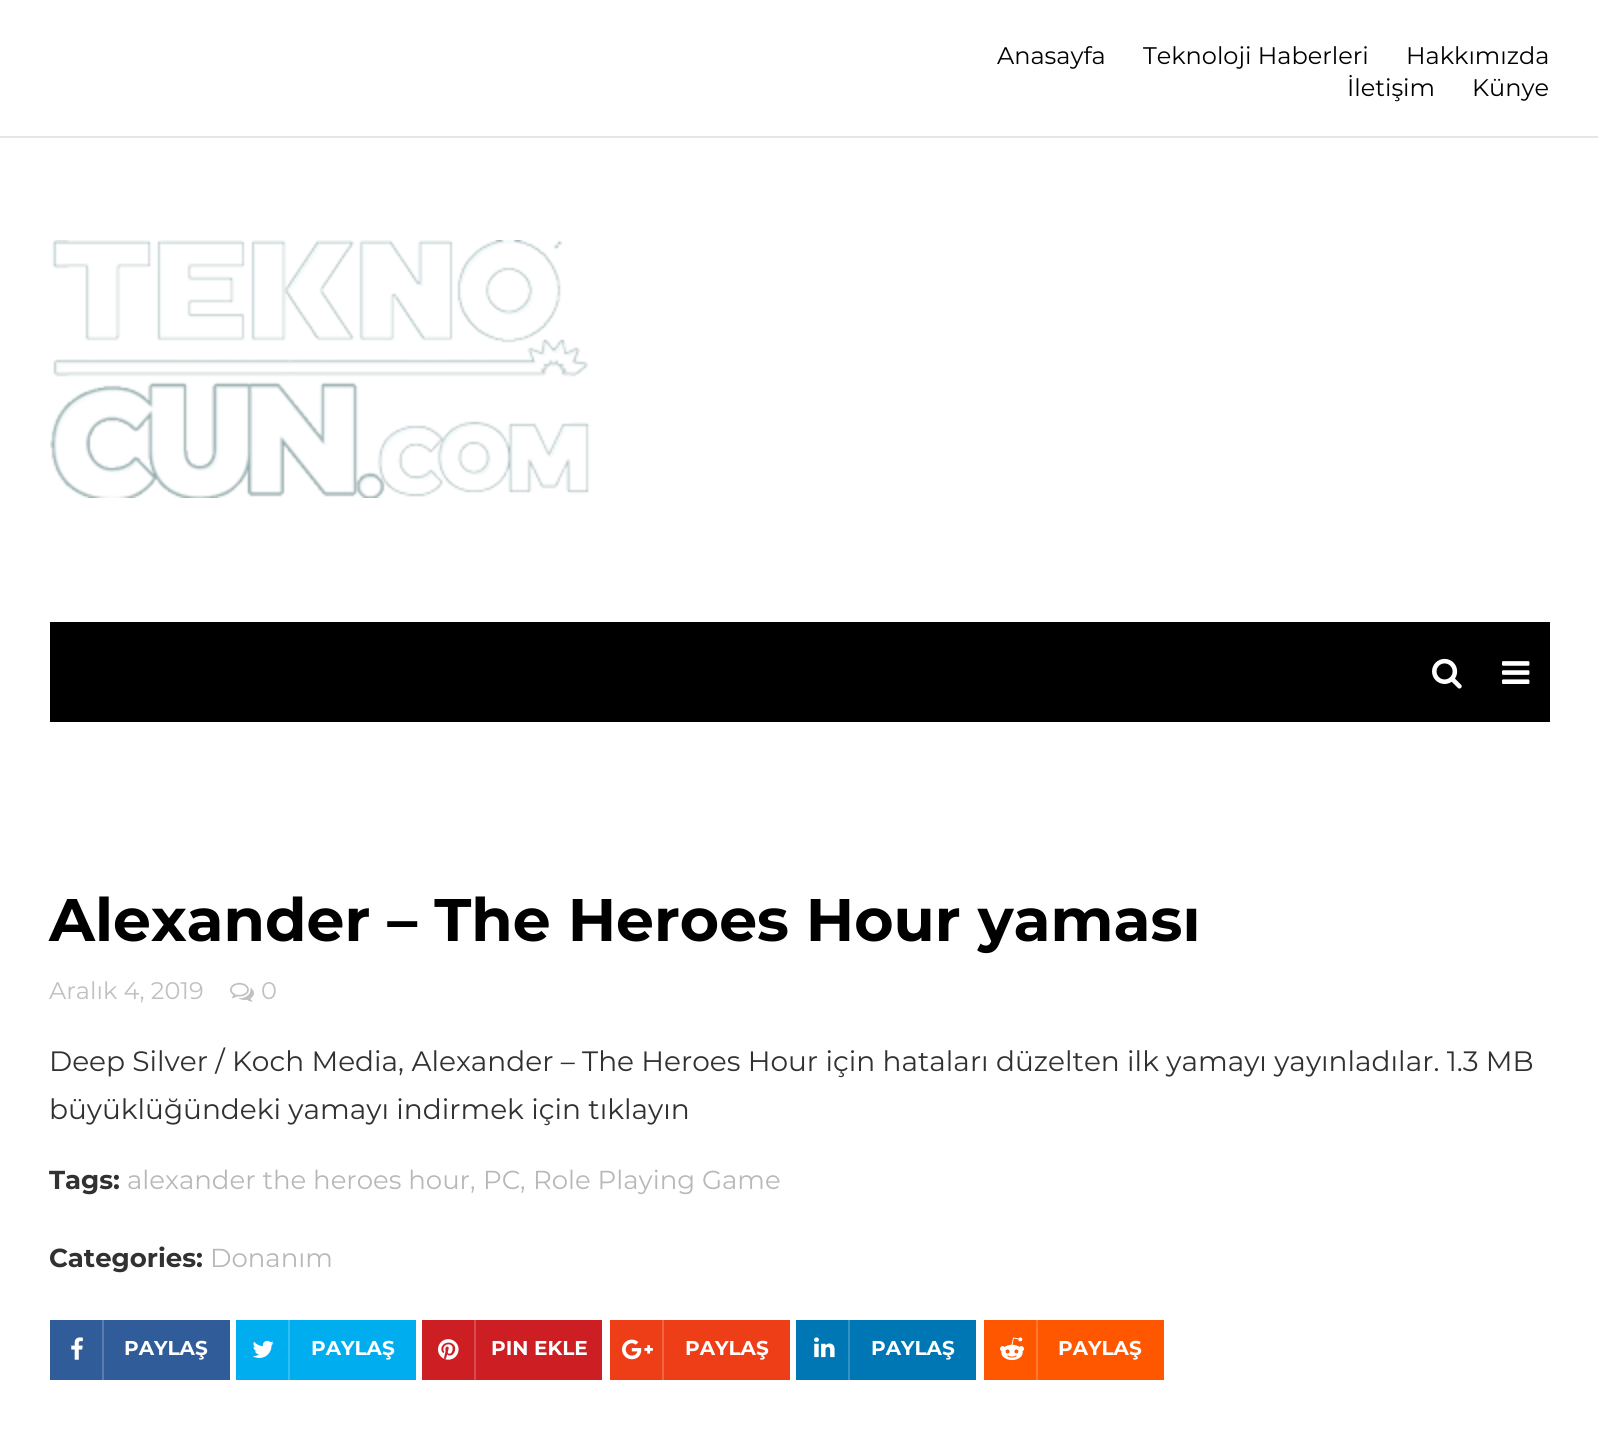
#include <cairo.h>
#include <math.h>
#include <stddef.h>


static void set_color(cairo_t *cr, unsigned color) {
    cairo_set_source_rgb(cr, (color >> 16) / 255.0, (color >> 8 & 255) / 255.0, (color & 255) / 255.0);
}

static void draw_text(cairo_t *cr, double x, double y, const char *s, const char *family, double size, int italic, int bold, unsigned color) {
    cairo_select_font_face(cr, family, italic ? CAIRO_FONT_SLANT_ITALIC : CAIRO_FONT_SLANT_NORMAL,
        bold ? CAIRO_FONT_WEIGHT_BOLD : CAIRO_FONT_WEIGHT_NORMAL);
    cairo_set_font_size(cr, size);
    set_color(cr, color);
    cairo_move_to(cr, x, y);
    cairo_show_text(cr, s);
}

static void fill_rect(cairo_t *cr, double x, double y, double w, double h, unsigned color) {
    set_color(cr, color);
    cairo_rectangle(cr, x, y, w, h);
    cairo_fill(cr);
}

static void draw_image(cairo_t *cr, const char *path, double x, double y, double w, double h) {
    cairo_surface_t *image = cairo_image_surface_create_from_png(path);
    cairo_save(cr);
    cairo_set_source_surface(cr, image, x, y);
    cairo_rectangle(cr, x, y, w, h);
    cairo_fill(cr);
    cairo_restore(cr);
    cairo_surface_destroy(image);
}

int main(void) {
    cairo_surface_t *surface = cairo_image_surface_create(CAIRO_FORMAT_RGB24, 1598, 1446);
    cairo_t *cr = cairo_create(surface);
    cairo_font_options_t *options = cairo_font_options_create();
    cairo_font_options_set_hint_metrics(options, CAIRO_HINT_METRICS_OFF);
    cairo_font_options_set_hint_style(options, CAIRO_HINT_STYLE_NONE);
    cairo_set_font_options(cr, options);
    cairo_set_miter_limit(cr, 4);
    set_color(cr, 0xFFFFFF);
    cairo_paint(cr);
    fill_rect(cr, 0, 136, 1598, 2, 0xE6E6E6);
    draw_text(cr, 997, 64, "Anasayfa", "Montserrat", 24, 0, 0, 0x000000);
    draw_text(cr, 1143, 64, "Teknoloji Haberleri", "Montserrat", 24, 0, 0, 0x000000);
    draw_text(cr, 1406, 64, "Hakkımızda", "Montserrat", 24, 0, 0, 0x000000);
    draw_text(cr, 1347, 96, "İletişim", "Montserrat", 24, 0, 0, 0x000000);
    draw_text(cr, 1472, 96, "Künye", "Montserrat", 24, 0, 0, 0x000000);
    draw_image(cr, "assets/img1.png", 50, 240, 540, 258);
    fill_rect(cr, 50, 622, 1500, 100, 0x000000);
    draw_image(cr, "assets/img2.png", 1432, 658, 30, 31);
    draw_image(cr, "assets/img3.png", 1502, 661, 28, 23);
    draw_text(cr, 49, 941, "Alexander – The Heroes Hour yaması", "Montserrat", 60, 0, 1, 0x000000);
    draw_text(cr, 49, 999, "Aralık 4, 2019", "Montserrat", 24, 0, 0, 0xC0C0C0);
    draw_image(cr, "assets/img4.png", 230, 982, 24, 20);
    draw_text(cr, 261, 999, "0", "Montserrat", 24, 0, 0, 0xC0C0C0);
    draw_text(cr, 49, 1071, "Deep Silver / Koch Media, Alexander – The Heroes Hour için hataları düzelten ilk yamayı yayınladılar. 1.3 MB", "Montserrat", 28, 0, 0, 0x313131);
    draw_text(cr, 49, 1119, "büyüklüğündeki yamayı indirmek için tıklayın", "Montserrat", 28, 0, 0, 0x313131);
    draw_text(cr, 49, 1189, "Tags:", "Montserrat", 26, 0, 1, 0x313131);
    draw_text(cr, 127, 1189, "alexander the heroes hour,", "Montserrat", 26, 0, 0, 0xB8B8B8);
    draw_text(cr, 483, 1189, "PC,", "Montserrat", 26, 0, 0, 0xB8B8B8);
    draw_text(cr, 533, 1189, "Role Playing Game", "Montserrat", 26, 0, 0, 0xB8B8B8);
    draw_text(cr, 49, 1267, "Categories:", "Montserrat", 26, 0, 1, 0x313131);
    draw_text(cr, 210, 1267, "Donanım", "Montserrat", 26, 0, 0, 0xB8B8B8);
    fill_rect(cr, 50, 1320, 180, 60, 0x315C9A);
    fill_rect(cr, 102, 1320, 2, 60, 0x5A7DAE);
    draw_image(cr, "assets/img5.png", 71, 1337, 12, 23);
    draw_text(cr, 124, 1355, "PAYLAŞ", "Montserrat", 20, 0, 1, 0xFFFFFF);
    fill_rect(cr, 236, 1320, 180, 60, 0x00AEF0);
    fill_rect(cr, 288, 1320, 2, 60, 0x33BEF3);
    draw_image(cr, "assets/img6.png", 252, 1340, 22, 18);
    draw_text(cr, 311, 1355, "PAYLAŞ", "Montserrat", 20, 0, 1, 0xFFFFFF);
    fill_rect(cr, 422, 1320, 180, 60, 0xCD1E23);
    fill_rect(cr, 474, 1320, 2, 60, 0xD74B4F);
    draw_image(cr, "assets/img7.png", 438, 1339, 21, 21);
    draw_text(cr, 491, 1355, "PIN EKLE", "Montserrat", 20, 0, 1, 0xFFFFFF);
    fill_rect(cr, 610, 1320, 180, 60, 0xED3E17);
    fill_rect(cr, 662, 1320, 2, 60, 0xF16545);
    draw_image(cr, "assets/img8.png", 622, 1339, 31, 21);
    draw_text(cr, 685, 1355, "PAYLAŞ", "Montserrat", 20, 0, 1, 0xFFFFFF);
    fill_rect(cr, 796, 1320, 180, 60, 0x0077B5);
    fill_rect(cr, 848, 1320, 2, 60, 0x3392C4);
    draw_image(cr, "assets/img9.png", 814, 1337, 21, 21);
    draw_text(cr, 871, 1355, "PAYLAŞ", "Montserrat", 20, 0, 1, 0xFFFFFF);
    fill_rect(cr, 984, 1320, 180, 60, 0xFF5700);
    fill_rect(cr, 1036, 1320, 2, 60, 0xFF7933);
    draw_image(cr, "assets/img10.png", 1000, 1337, 24, 24);
    draw_text(cr, 1058, 1355, "PAYLAŞ", "Montserrat", 20, 0, 1, 0xFFFFFF);
    cairo_surface_write_to_png(surface, "output.png");
    cairo_font_options_destroy(options);
    cairo_destroy(cr);
    cairo_surface_destroy(surface);
    return 0;
}
